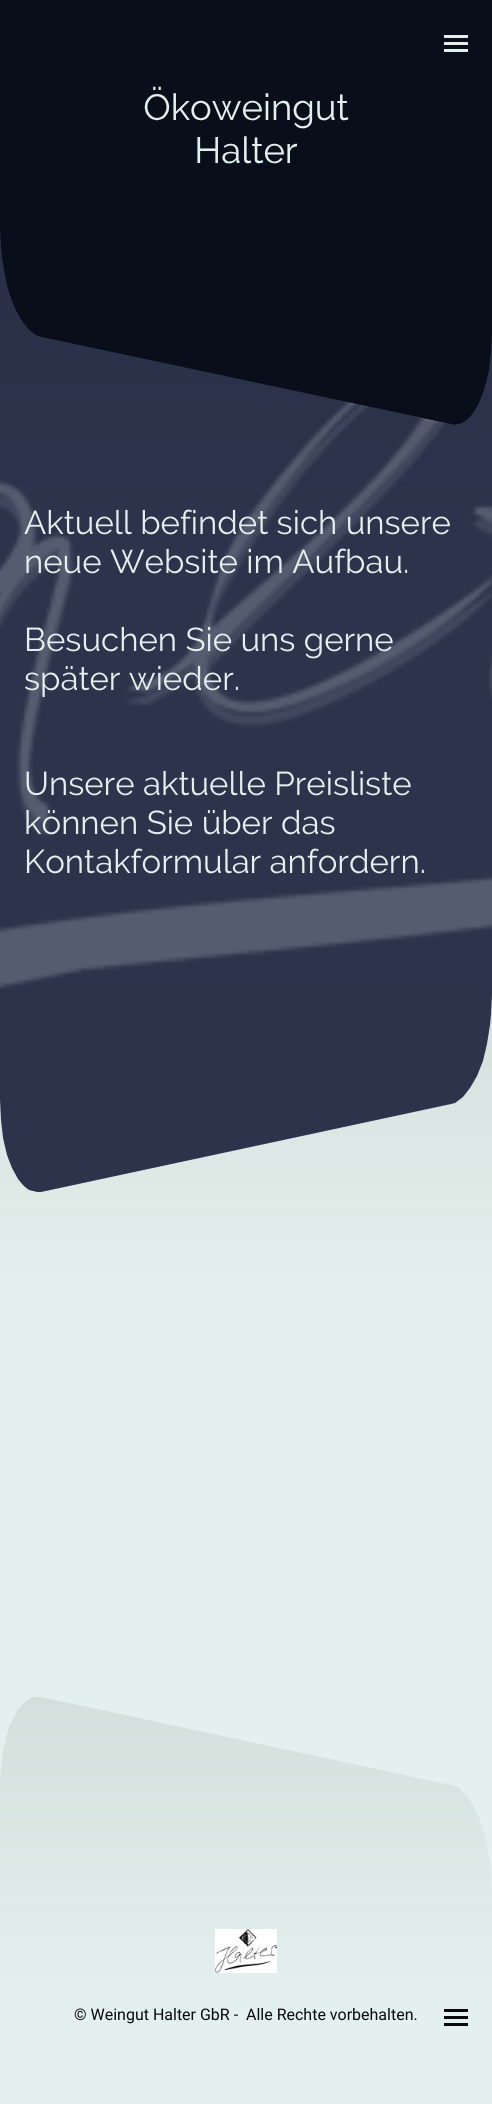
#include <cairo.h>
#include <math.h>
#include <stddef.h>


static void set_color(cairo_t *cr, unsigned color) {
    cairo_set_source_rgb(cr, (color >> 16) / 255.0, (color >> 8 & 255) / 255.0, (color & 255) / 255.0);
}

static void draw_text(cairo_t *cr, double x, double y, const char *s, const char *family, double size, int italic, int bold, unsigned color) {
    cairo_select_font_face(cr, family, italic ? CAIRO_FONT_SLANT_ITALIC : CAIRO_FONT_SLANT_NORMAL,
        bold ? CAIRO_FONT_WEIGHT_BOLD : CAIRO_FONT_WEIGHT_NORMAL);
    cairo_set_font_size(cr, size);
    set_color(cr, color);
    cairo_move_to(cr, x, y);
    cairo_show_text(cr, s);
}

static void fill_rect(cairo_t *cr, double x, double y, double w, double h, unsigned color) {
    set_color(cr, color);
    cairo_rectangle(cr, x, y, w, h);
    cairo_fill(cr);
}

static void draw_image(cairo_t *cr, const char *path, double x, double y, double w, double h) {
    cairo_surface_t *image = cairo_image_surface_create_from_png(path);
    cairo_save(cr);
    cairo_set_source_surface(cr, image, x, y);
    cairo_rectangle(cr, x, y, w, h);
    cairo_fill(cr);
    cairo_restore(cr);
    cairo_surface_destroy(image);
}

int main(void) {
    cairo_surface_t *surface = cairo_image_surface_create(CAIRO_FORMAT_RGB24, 492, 2104);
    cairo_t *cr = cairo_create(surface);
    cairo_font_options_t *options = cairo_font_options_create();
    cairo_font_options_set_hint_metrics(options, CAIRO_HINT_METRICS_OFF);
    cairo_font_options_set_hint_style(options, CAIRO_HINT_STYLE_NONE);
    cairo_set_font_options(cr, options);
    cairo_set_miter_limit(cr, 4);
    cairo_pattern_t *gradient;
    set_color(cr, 0xE4F0ED);
    cairo_paint(cr);
    fill_rect(cr, 0, 0, 492, 425, 0x080F1A);
    fill_rect(cr, 444, 35, 24, 3, 0xE4F0ED);
    fill_rect(cr, 444, 42, 24, 3, 0xE4F0ED);
    fill_rect(cr, 444, 49, 24, 3, 0xE4F0ED);
    draw_image(cr, "assets/img1.png", 144, 86, 205, 78);
    set_color(cr, 0x2C344C);
    cairo_new_path(cr);
    cairo_move_to(cr, 0, 228);
    cairo_line_to(cr, 0, 1196);
    cairo_line_to(cr, 492, 1196);
    cairo_line_to(cr, 492, 333);
    cairo_line_to(cr, 491, 353);
    cairo_line_to(cr, 489, 371);
    cairo_line_to(cr, 485, 387);
    cairo_line_to(cr, 480, 401);
    cairo_line_to(cr, 474, 412);
    cairo_line_to(cr, 470, 417);
    cairo_line_to(cr, 467, 420);
    cairo_line_to(cr, 463, 423);
    cairo_line_to(cr, 459, 424);
    cairo_line_to(cr, 455, 425);
    cairo_line_to(cr, 451, 424);
    cairo_line_to(cr, 41, 337);
    cairo_line_to(cr, 37, 336);
    cairo_line_to(cr, 33, 333);
    cairo_line_to(cr, 29, 330);
    cairo_line_to(cr, 22, 321);
    cairo_line_to(cr, 15, 309);
    cairo_line_to(cr, 9, 294);
    cairo_line_to(cr, 5, 277);
    cairo_line_to(cr, 2, 258);
    cairo_line_to(cr, 1, 248);
    cairo_close_path(cr);
    cairo_fill(cr);
    draw_image(cr, "assets/img2.png", 0, 238, 492, 751);
    gradient = cairo_pattern_create_linear(246, 228, 246, 528);
    cairo_pattern_add_color_stop_rgba(gradient, 0, 0, 0, 0, 0.07);
    cairo_pattern_add_color_stop_rgba(gradient, 1, 0, 0, 0, 0);
    cairo_set_source(cr, gradient);
    cairo_pattern_destroy(gradient);
    cairo_new_path(cr);
    cairo_move_to(cr, 0, 228);
    cairo_line_to(cr, 0, 528);
    cairo_line_to(cr, 492, 528);
    cairo_line_to(cr, 492, 333);
    cairo_line_to(cr, 491, 353);
    cairo_line_to(cr, 489, 371);
    cairo_line_to(cr, 485, 387);
    cairo_line_to(cr, 480, 401);
    cairo_line_to(cr, 474, 412);
    cairo_line_to(cr, 470, 417);
    cairo_line_to(cr, 467, 420);
    cairo_line_to(cr, 463, 423);
    cairo_line_to(cr, 459, 424);
    cairo_line_to(cr, 455, 425);
    cairo_line_to(cr, 451, 424);
    cairo_line_to(cr, 41, 337);
    cairo_line_to(cr, 37, 336);
    cairo_line_to(cr, 33, 333);
    cairo_line_to(cr, 29, 330);
    cairo_line_to(cr, 22, 321);
    cairo_line_to(cr, 15, 309);
    cairo_line_to(cr, 9, 294);
    cairo_line_to(cr, 5, 277);
    cairo_line_to(cr, 2, 258);
    cairo_line_to(cr, 1, 248);
    cairo_close_path(cr);
    cairo_fill(cr);
    draw_text(cr, 24, 534, "Aktuell befindet sich unsere", "Raleway", 33, 0, 0, 0xE4F0ED);
    draw_text(cr, 24, 573, "neue Website im Aufbau.", "Raleway", 33, 0, 0, 0xE4F0ED);
    draw_text(cr, 24, 651, "Besuchen Sie uns gerne", "Raleway", 33, 0, 0, 0xE4F0ED);
    draw_text(cr, 24, 690, "später wieder.", "Raleway", 33, 0, 0, 0xE4F0ED);
    draw_text(cr, 24, 795, "Unsere aktuelle Preisliste", "Raleway", 33, 0, 0, 0xE4F0ED);
    draw_text(cr, 24, 834, "können Sie über das", "Raleway", 33, 0, 0, 0xE4F0ED);
    draw_text(cr, 24, 873, "Kontakformular anfordern.", "Raleway", 33, 0, 0, 0xE4F0ED);
    cairo_new_path(cr);
    cairo_move_to(cr, 492, 1475);
    cairo_line_to(cr, 492, 995);
    cairo_line_to(cr, 491, 1015);
    cairo_line_to(cr, 490, 1025);
    cairo_line_to(cr, 487, 1044);
    cairo_line_to(cr, 483, 1061);
    cairo_line_to(cr, 477, 1076);
    cairo_line_to(cr, 470, 1088);
    cairo_line_to(cr, 463, 1097);
    cairo_line_to(cr, 459, 1100);
    cairo_line_to(cr, 455, 1103);
    cairo_line_to(cr, 451, 1104);
    cairo_line_to(cr, 41, 1192);
    cairo_line_to(cr, 37, 1192);
    cairo_line_to(cr, 33, 1191);
    cairo_line_to(cr, 29, 1190);
    cairo_line_to(cr, 25, 1187);
    cairo_line_to(cr, 22, 1184);
    cairo_line_to(cr, 18, 1179);
    cairo_line_to(cr, 12, 1168);
    cairo_line_to(cr, 7, 1155);
    cairo_line_to(cr, 3, 1138);
    cairo_line_to(cr, 1, 1120);
    cairo_line_to(cr, 0, 1100);
    cairo_line_to(cr, 0, 1475);
    cairo_close_path(cr);
    cairo_fill(cr);
    gradient = cairo_pattern_create_linear(246, 995, 246, 1295);
    cairo_pattern_add_color_stop_rgba(gradient, 0, 0, 0, 0, 0.07);
    cairo_pattern_add_color_stop_rgba(gradient, 1, 0, 0, 0, 0);
    cairo_set_source(cr, gradient);
    cairo_pattern_destroy(gradient);
    cairo_new_path(cr);
    cairo_move_to(cr, 0, 1295);
    cairo_line_to(cr, 492, 1295);
    cairo_line_to(cr, 492, 995);
    cairo_line_to(cr, 491, 1015);
    cairo_line_to(cr, 490, 1025);
    cairo_line_to(cr, 487, 1044);
    cairo_line_to(cr, 483, 1061);
    cairo_line_to(cr, 477, 1076);
    cairo_line_to(cr, 470, 1088);
    cairo_line_to(cr, 463, 1097);
    cairo_line_to(cr, 459, 1100);
    cairo_line_to(cr, 455, 1103);
    cairo_line_to(cr, 451, 1104);
    cairo_line_to(cr, 41, 1192);
    cairo_line_to(cr, 37, 1192);
    cairo_line_to(cr, 33, 1191);
    cairo_line_to(cr, 29, 1190);
    cairo_line_to(cr, 25, 1187);
    cairo_line_to(cr, 22, 1184);
    cairo_line_to(cr, 18, 1179);
    cairo_line_to(cr, 12, 1168);
    cairo_line_to(cr, 7, 1155);
    cairo_line_to(cr, 3, 1138);
    cairo_line_to(cr, 1, 1120);
    cairo_line_to(cr, 0, 1100);
    cairo_close_path(cr);
    cairo_fill(cr);
    gradient = cairo_pattern_create_linear(246, 1697, 246, 1997);
    cairo_pattern_add_color_stop_rgba(gradient, 0, 0.831, 0.875, 0.863, 1);
    cairo_pattern_add_color_stop_rgba(gradient, 1, 0.894, 0.941, 0.929, 1);
    cairo_set_source(cr, gradient);
    cairo_pattern_destroy(gradient);
    cairo_new_path(cr);
    cairo_move_to(cr, 0, 1997);
    cairo_line_to(cr, 492, 1997);
    cairo_line_to(cr, 492, 1894);
    cairo_line_to(cr, 491, 1873);
    cairo_line_to(cr, 490, 1864);
    cairo_line_to(cr, 487, 1845);
    cairo_line_to(cr, 485, 1836);
    cairo_line_to(cr, 480, 1820);
    cairo_line_to(cr, 474, 1807);
    cairo_line_to(cr, 467, 1796);
    cairo_line_to(cr, 463, 1792);
    cairo_line_to(cr, 459, 1788);
    cairo_line_to(cr, 455, 1786);
    cairo_line_to(cr, 451, 1785);
    cairo_line_to(cr, 41, 1697);
    cairo_line_to(cr, 33, 1697);
    cairo_line_to(cr, 29, 1699);
    cairo_line_to(cr, 25, 1702);
    cairo_line_to(cr, 22, 1705);
    cairo_line_to(cr, 18, 1709);
    cairo_line_to(cr, 15, 1715);
    cairo_line_to(cr, 9, 1727);
    cairo_line_to(cr, 7, 1734);
    cairo_line_to(cr, 3, 1750);
    cairo_line_to(cr, 2, 1759);
    cairo_line_to(cr, 0, 1779);
    cairo_line_to(cr, 0, 1789);
    cairo_close_path(cr);
    cairo_fill(cr);
    draw_image(cr, "assets/img3.png", 215, 1929, 62, 44);
    draw_text(cr, 74, 2020, "© Weingut Halter GbR -  Alle Rechte vorbehalten.", "Roboto", 16, 0, 0, 0x090A0A);
    fill_rect(cr, 444, 2009, 24, 3, 0x090A0A);
    fill_rect(cr, 444, 2016, 24, 3, 0x090A0A);
    fill_rect(cr, 444, 2023, 24, 3, 0x090A0A);
    cairo_surface_write_to_png(surface, "output.png");
    cairo_font_options_destroy(options);
    cairo_destroy(cr);
    cairo_surface_destroy(surface);
    return 0;
}
